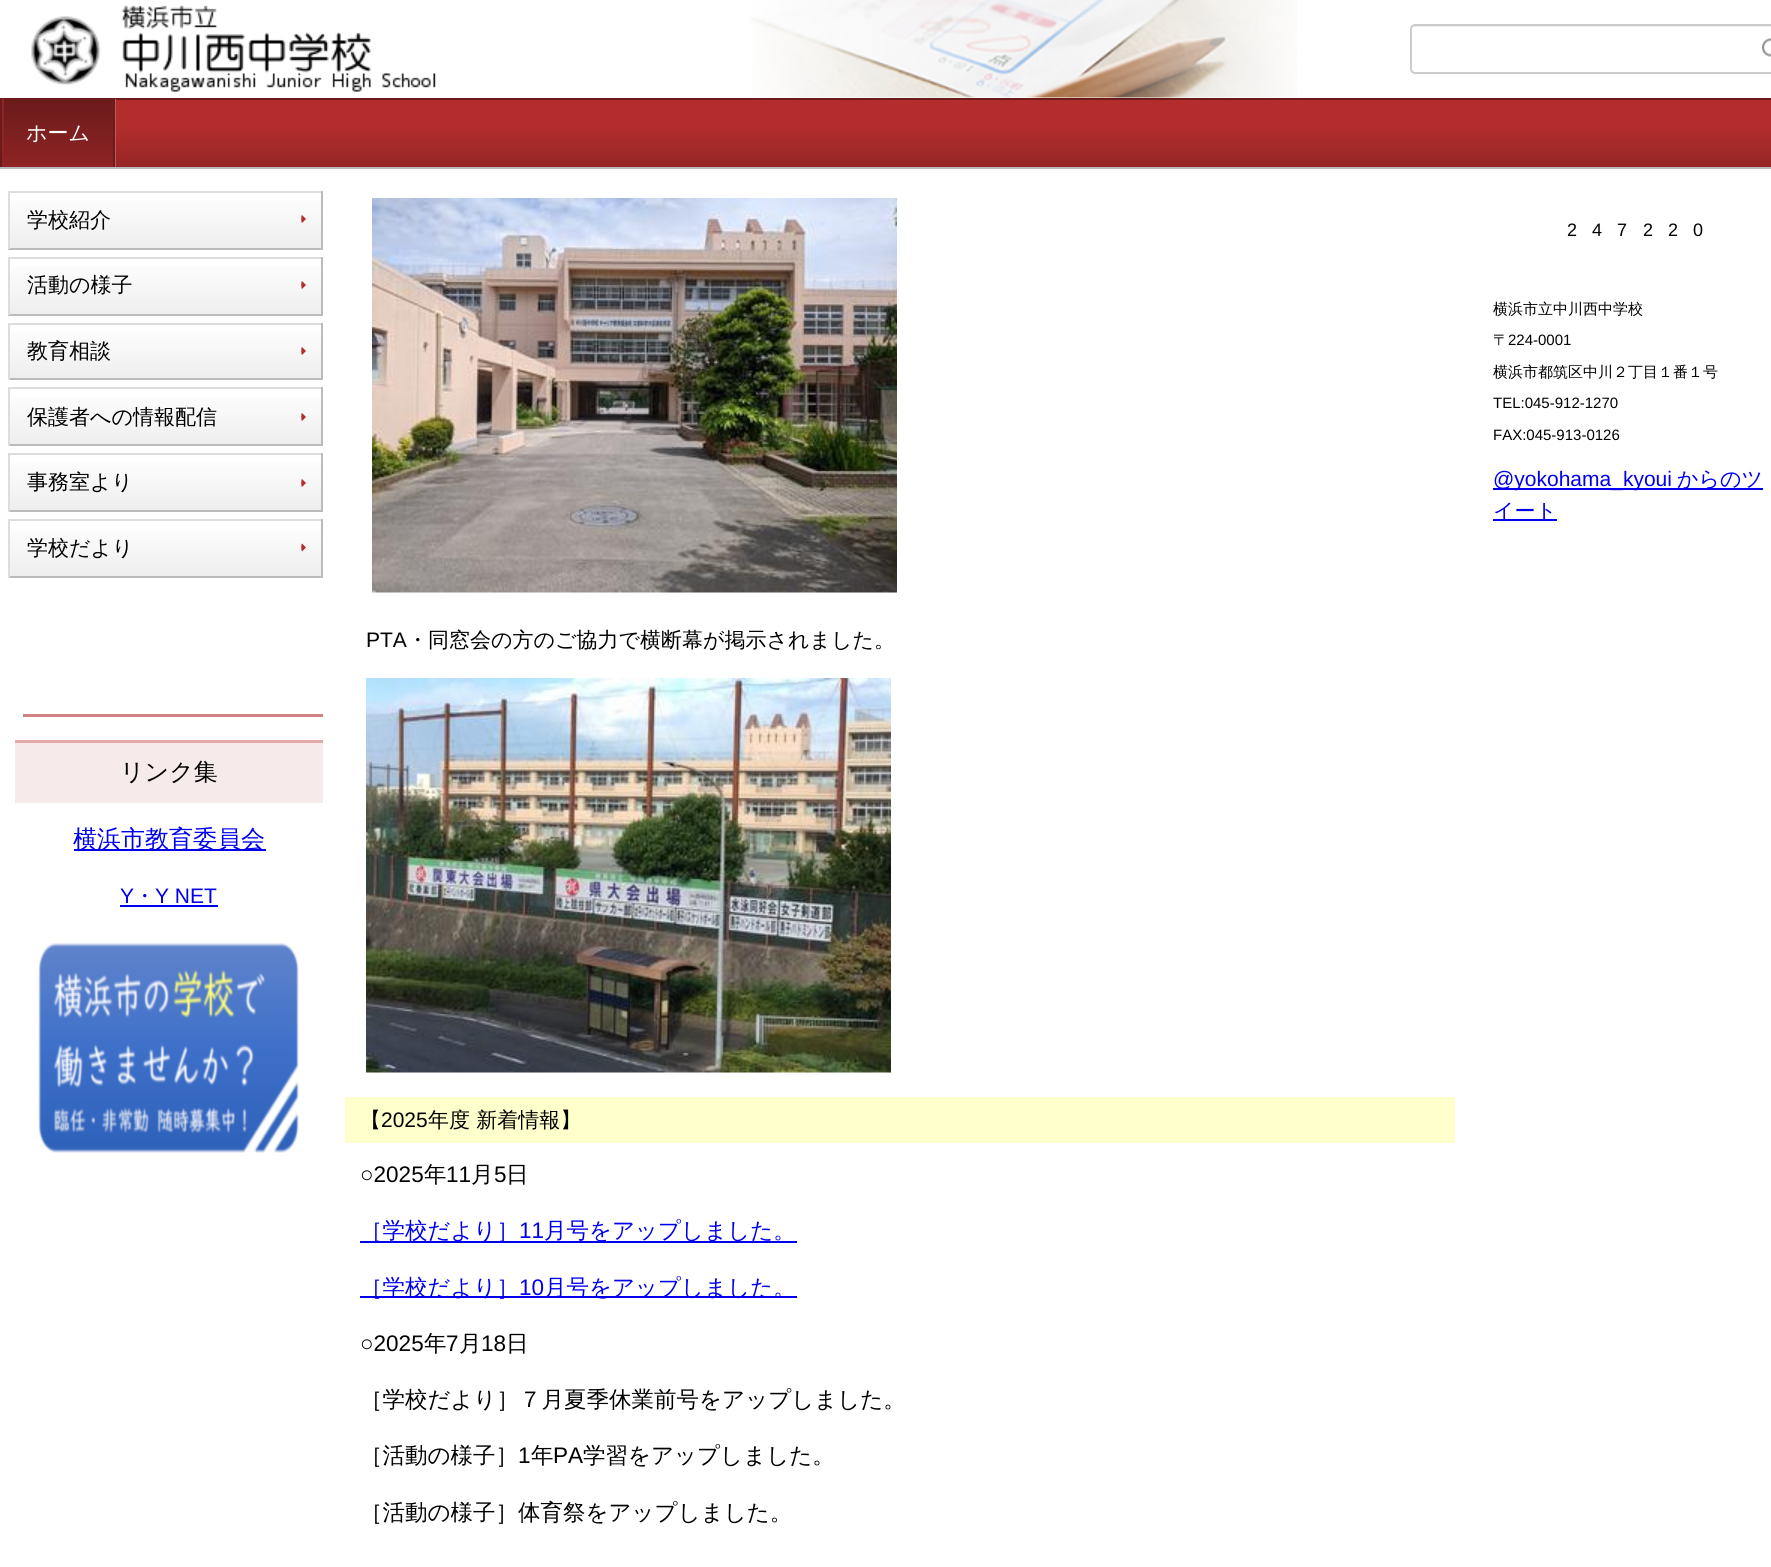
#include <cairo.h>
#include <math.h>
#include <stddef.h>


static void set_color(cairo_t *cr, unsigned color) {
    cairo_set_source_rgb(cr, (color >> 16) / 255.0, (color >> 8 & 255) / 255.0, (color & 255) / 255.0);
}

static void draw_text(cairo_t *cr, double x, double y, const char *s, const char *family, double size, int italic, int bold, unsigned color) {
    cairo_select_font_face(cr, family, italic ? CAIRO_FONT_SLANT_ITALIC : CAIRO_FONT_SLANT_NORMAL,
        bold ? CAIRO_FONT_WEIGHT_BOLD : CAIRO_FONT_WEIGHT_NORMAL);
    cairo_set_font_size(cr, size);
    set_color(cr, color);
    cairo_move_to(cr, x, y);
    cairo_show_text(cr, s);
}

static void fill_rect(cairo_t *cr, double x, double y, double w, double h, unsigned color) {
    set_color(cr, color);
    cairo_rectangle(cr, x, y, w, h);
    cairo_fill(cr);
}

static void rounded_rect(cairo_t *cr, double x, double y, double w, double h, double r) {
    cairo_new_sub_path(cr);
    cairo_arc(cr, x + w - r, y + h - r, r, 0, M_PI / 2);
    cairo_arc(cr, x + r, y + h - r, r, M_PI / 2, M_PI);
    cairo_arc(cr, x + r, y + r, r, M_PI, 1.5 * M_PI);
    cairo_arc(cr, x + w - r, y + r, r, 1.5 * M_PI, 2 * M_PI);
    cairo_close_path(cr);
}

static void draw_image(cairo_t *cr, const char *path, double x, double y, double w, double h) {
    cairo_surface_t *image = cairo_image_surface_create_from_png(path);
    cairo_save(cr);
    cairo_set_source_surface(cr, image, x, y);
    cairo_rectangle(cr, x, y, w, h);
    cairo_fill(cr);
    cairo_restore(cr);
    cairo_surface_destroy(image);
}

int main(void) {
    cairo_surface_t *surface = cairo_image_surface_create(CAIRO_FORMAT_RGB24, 1771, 1567);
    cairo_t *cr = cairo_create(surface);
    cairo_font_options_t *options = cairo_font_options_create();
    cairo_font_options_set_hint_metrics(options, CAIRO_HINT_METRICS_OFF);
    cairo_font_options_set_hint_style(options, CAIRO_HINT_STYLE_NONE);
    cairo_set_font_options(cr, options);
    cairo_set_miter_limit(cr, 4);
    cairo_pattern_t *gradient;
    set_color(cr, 0xFFFFFF);
    cairo_paint(cr);
    draw_image(cr, "assets/img1.png", 750, 0, 547, 98);
    draw_image(cr, "assets/img2.png", 31, 5, 405, 87);
    set_color(cr, 0xECECEC);
    cairo_new_path(cr);
    cairo_move_to(cr, 1414, 27);
    cairo_line_to(cr, 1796, 27);
    cairo_curve_to(cr, 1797, 27, 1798, 28, 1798, 30);
    cairo_line_to(cr, 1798, 71);
    cairo_curve_to(cr, 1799, 71, 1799, 70, 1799, 69);
    cairo_line_to(cr, 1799, 29);
    cairo_curve_to(cr, 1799, 27, 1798, 26, 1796, 26);
    cairo_line_to(cr, 1415, 26);
    cairo_curve_to(cr, 1413, 26, 1412, 27, 1412, 29);
    cairo_line_to(cr, 1412, 30);
    cairo_curve_to(cr, 1412, 28, 1413, 27, 1414, 27);
    cairo_close_path(cr);
    cairo_fill(cr);
    rounded_rect(cr, 1411, 25, 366, 48, 4);
    set_color(cr, 0xCCCCCC);
    cairo_stroke(cr);
    draw_image(cr, "assets/img3.png", 1762, 38, 9, 19);
    fill_rect(cr, 116, 100, 1655, 26, 0xB32D2D);
    fill_rect(cr, 0, 98, 1771, 2, 0x6B1B1B);
    fill_rect(cr, 0, 167, 1771, 2, 0xBBBBBB);
    fill_rect(cr, 115, 99, 1, 68, 0xC25757);
    fill_rect(cr, 0, 99, 2, 68, 0x6B1B1B);
    gradient = cairo_pattern_create_linear(58, 99, 58, 167);
    cairo_pattern_add_color_stop_rgba(gradient, 0, 0.42, 0.106, 0.106, 1);
    cairo_pattern_add_color_stop_rgba(gradient, 1, 0.561, 0.141, 0.141, 1);
    cairo_set_source(cr, gradient);
    cairo_pattern_destroy(gradient);
    cairo_rectangle(cr, 4, 100, 109, 67);
    cairo_fill(cr);
    fill_rect(cr, 113, 99, 2, 68, 0x6B1B1B);
    fill_rect(cr, 2, 99, 2, 68, 0x8F2424);
    draw_text(cr, 26, 140, "ホーム", "WenQuanYi Zen Hei Medium", 21, 0, 0, 0xFFFFFF);
    gradient = cairo_pattern_create_linear(900, 126, 900, 167);
    cairo_pattern_add_color_stop_rgba(gradient, 0, 0.702, 0.176, 0.176, 1);
    cairo_pattern_add_color_stop_rgba(gradient, 1, 0.588, 0.149, 0.149, 1);
    cairo_set_source(cr, gradient);
    cairo_pattern_destroy(gradient);
    cairo_rectangle(cr, 116, 126, 1655, 41);
    cairo_fill(cr);
    gradient = cairo_pattern_create_linear(165, 192, 165, 248);
    cairo_pattern_add_color_stop_rgba(gradient, 0, 1, 1, 1, 1);
    cairo_pattern_add_color_stop_rgba(gradient, 1, 0.933, 0.933, 0.933, 1);
    cairo_set_source(cr, gradient);
    cairo_pattern_destroy(gradient);
    cairo_rectangle(cr, 10, 200, 311, 48);
    cairo_fill(cr);
    fill_rect(cr, 8, 191, 315, 2, 0xDDDDDD);
    fill_rect(cr, 321, 191, 2, 58, 0xBBBBBB);
    fill_rect(cr, 8, 248, 315, 2, 0xBBBBBB);
    fill_rect(cr, 8, 191, 2, 58, 0xDDDDDD);
    draw_text(cr, 27, 227, "学校紹介", "WenQuanYi Zen Hei Medium", 21, 0, 0, 0x000000);
    set_color(cr, 0xB32D2D);
    cairo_new_path(cr);
    cairo_move_to(cr, 306, 219);
    cairo_line_to(cr, 302, 223);
    cairo_curve_to(cr, 301, 222, 301, 215.5, 302, 215);
    cairo_close_path(cr);
    cairo_fill(cr);
    gradient = cairo_pattern_create_linear(165, 258, 165, 314);
    cairo_pattern_add_color_stop_rgba(gradient, 0, 1, 1, 1, 1);
    cairo_pattern_add_color_stop_rgba(gradient, 1, 0.933, 0.933, 0.933, 1);
    cairo_set_source(cr, gradient);
    cairo_pattern_destroy(gradient);
    cairo_rectangle(cr, 10, 266, 311, 48);
    cairo_fill(cr);
    fill_rect(cr, 8, 257, 315, 2, 0xDDDDDD);
    fill_rect(cr, 321, 257, 2, 58, 0xBBBBBB);
    fill_rect(cr, 8, 314, 315, 2, 0xBBBBBB);
    fill_rect(cr, 8, 257, 2, 58, 0xDDDDDD);
    draw_text(cr, 27, 292, "活動の様子", "WenQuanYi Zen Hei Medium", 21, 0, 0, 0x000000);
    set_color(cr, 0xB32D2D);
    cairo_new_path(cr);
    cairo_move_to(cr, 306, 285);
    cairo_line_to(cr, 302, 289);
    cairo_curve_to(cr, 301, 288, 301, 281.5, 302, 281);
    cairo_close_path(cr);
    cairo_fill(cr);
    gradient = cairo_pattern_create_linear(165, 324, 165, 378);
    cairo_pattern_add_color_stop_rgba(gradient, 0, 1, 1, 1, 1);
    cairo_pattern_add_color_stop_rgba(gradient, 1, 0.933, 0.933, 0.933, 1);
    cairo_set_source(cr, gradient);
    cairo_pattern_destroy(gradient);
    cairo_rectangle(cr, 10, 332, 311, 46);
    cairo_fill(cr);
    fill_rect(cr, 8, 323, 315, 2, 0xDDDDDD);
    fill_rect(cr, 321, 323, 2, 57, 0xBBBBBB);
    fill_rect(cr, 8, 378, 315, 2, 0xBBBBBB);
    fill_rect(cr, 8, 323, 2, 57, 0xDDDDDD);
    draw_text(cr, 27, 358, "教育相談", "WenQuanYi Zen Hei Medium", 21, 0, 0, 0x000000);
    set_color(cr, 0xB32D2D);
    cairo_new_path(cr);
    cairo_move_to(cr, 306, 351);
    cairo_line_to(cr, 302, 355);
    cairo_curve_to(cr, 301, 354, 301, 347.5, 302, 347);
    cairo_close_path(cr);
    cairo_fill(cr);
    gradient = cairo_pattern_create_linear(165, 389, 165, 444);
    cairo_pattern_add_color_stop_rgba(gradient, 0, 1, 1, 1, 1);
    cairo_pattern_add_color_stop_rgba(gradient, 1, 0.933, 0.933, 0.933, 1);
    cairo_set_source(cr, gradient);
    cairo_pattern_destroy(gradient);
    cairo_rectangle(cr, 10, 397, 311, 47);
    cairo_fill(cr);
    fill_rect(cr, 8, 387, 315, 2, 0xDDDDDD);
    fill_rect(cr, 321, 387, 2, 59, 0xBBBBBB);
    fill_rect(cr, 8, 444, 315, 2, 0xBBBBBB);
    fill_rect(cr, 8, 387, 2, 59, 0xDDDDDD);
    draw_text(cr, 27, 424, "保護者への情報配信", "WenQuanYi Zen Hei Medium", 21, 0, 0, 0x000000);
    set_color(cr, 0xB32D2D);
    cairo_new_path(cr);
    cairo_move_to(cr, 306, 417);
    cairo_line_to(cr, 302, 421);
    cairo_curve_to(cr, 301, 420, 301, 413.5, 302, 413);
    cairo_close_path(cr);
    cairo_fill(cr);
    gradient = cairo_pattern_create_linear(165, 455, 165, 510);
    cairo_pattern_add_color_stop_rgba(gradient, 0, 1, 1, 1, 1);
    cairo_pattern_add_color_stop_rgba(gradient, 1, 0.933, 0.933, 0.933, 1);
    cairo_set_source(cr, gradient);
    cairo_pattern_destroy(gradient);
    cairo_rectangle(cr, 10, 463, 311, 47);
    cairo_fill(cr);
    fill_rect(cr, 8, 453, 315, 2, 0xDDDDDD);
    fill_rect(cr, 321, 453, 2, 59, 0xBBBBBB);
    fill_rect(cr, 8, 510, 315, 2, 0xBBBBBB);
    fill_rect(cr, 8, 453, 2, 59, 0xDDDDDD);
    draw_text(cr, 27, 489, "事務室より", "WenQuanYi Zen Hei Medium", 21, 0, 0, 0x000000);
    set_color(cr, 0xB32D2D);
    cairo_new_path(cr);
    cairo_move_to(cr, 306, 483);
    cairo_line_to(cr, 302, 487);
    cairo_curve_to(cr, 301, 486, 301, 479.5, 302, 479);
    cairo_close_path(cr);
    cairo_fill(cr);
    gradient = cairo_pattern_create_linear(165, 521, 165, 576);
    cairo_pattern_add_color_stop_rgba(gradient, 0, 1, 1, 1, 1);
    cairo_pattern_add_color_stop_rgba(gradient, 1, 0.933, 0.933, 0.933, 1);
    cairo_set_source(cr, gradient);
    cairo_pattern_destroy(gradient);
    cairo_rectangle(cr, 10, 529, 311, 47);
    cairo_fill(cr);
    fill_rect(cr, 8, 519, 315, 2, 0xDDDDDD);
    fill_rect(cr, 321, 519, 2, 59, 0xBBBBBB);
    fill_rect(cr, 8, 576, 315, 2, 0xBBBBBB);
    fill_rect(cr, 8, 519, 2, 59, 0xDDDDDD);
    draw_text(cr, 27, 555, "学校だより", "WenQuanYi Zen Hei Medium", 21, 0, 0, 0x000000);
    set_color(cr, 0xB32D2D);
    cairo_new_path(cr);
    cairo_move_to(cr, 306, 547.5);
    cairo_line_to(cr, 302, 551.5);
    cairo_curve_to(cr, 301, 550.5, 301, 544, 302, 543.5);
    cairo_close_path(cr);
    cairo_fill(cr);
    fill_rect(cr, 23, 714, 300, 3, 0xD18181);
    fill_rect(cr, 15, 743, 308, 60, 0xF7EAEA);
    fill_rect(cr, 15, 740, 308, 3, 0xE1ABAB);
    draw_text(cr, 120, 780, "リンク集", "WenQuanYi Zen Hei Medium", 24, 0, 0, 0x000000);
    fill_rect(cr, 74, 849, 192, 2, 0x0000EE);
    draw_text(cr, 73, 847, "横浜市教育委員会", "WenQuanYi Zen Hei Medium", 24, 0, 0, 0x0000EE);
    draw_text(cr, 120, 903, "Y", "Liberation Sans", 21, 0, 0, 0x0000EE);
    fill_rect(cr, 120, 905, 98, 2, 0x0000EE);
    draw_text(cr, 134, 903, "・", "WenQuanYi Zen Hei Medium", 21, 0, 0, 0x0000EE);
    draw_text(cr, 155, 903, "Y NET", "Liberation Sans", 21, 0, 0, 0x0000EE);
    draw_image(cr, "assets/img4.png", 38, 943, 261, 210);
    draw_text(cr, 1567, 236, "2", "Liberation Sans", 18, 0, 0, 0x000000);
    draw_text(cr, 1592, 236, "4", "Liberation Sans", 18, 0, 0, 0x000000);
    draw_text(cr, 1617, 236, "7", "Liberation Sans", 18, 0, 0, 0x000000);
    draw_text(cr, 1643, 236, "2", "Liberation Sans", 18, 0, 0, 0x000000);
    draw_text(cr, 1668, 236, "2", "Liberation Sans", 18, 0, 0, 0x000000);
    draw_text(cr, 1693, 236, "0", "Liberation Sans", 18, 0, 0, 0x000000);
    draw_text(cr, 1493, 314, "横浜市立中川西中学校", "WenQuanYi Zen Hei Medium", 15, 0, 0, 0x000000);
    draw_text(cr, 1493, 345, "〒", "WenQuanYi Zen Hei Medium", 15, 0, 0, 0x000000);
    draw_text(cr, 1508, 345, "224-0001", "Liberation Sans", 15, 0, 0, 0x000000);
    draw_text(cr, 1493, 377, "横浜市都筑区中川２丁目１番１号", "WenQuanYi Zen Hei Medium", 15, 0, 0, 0x000000);
    draw_text(cr, 1493, 408, "TEL:045-912-1270", "Liberation Sans", 15, 0, 0, 0x000000);
    draw_text(cr, 1493, 440, "FAX:045-913-0126", "Liberation Sans", 15, 0, 0, 0x000000);
    fill_rect(cr, 1493, 488, 270, 2, 0x0000EE);
    draw_text(cr, 1493, 486, "@yokohama_kyoui", "Liberation Sans", 21, 0, 0, 0x0000EE);
    draw_text(cr, 1677, 486, "からのツ", "WenQuanYi Zen Hei Medium", 21, 0, 0, 0x0000EE);
    fill_rect(cr, 1493, 519, 64, 2, 0x0000EE);
    draw_text(cr, 1493, 518, "イート", "WenQuanYi Zen Hei Medium", 21, 0, 0, 0x0000EE);
    draw_image(cr, "assets/img5.png", 372, 198, 525, 395);
    draw_text(cr, 366, 647, "PTA", "Liberation Sans", 21, 0, 0, 0x000000);
    draw_text(cr, 407, 647, "・同窓会の方のご協力で横断幕が掲示されました。", "WenQuanYi Zen Hei Medium", 21, 0, 0, 0x000000);
    draw_image(cr, "assets/img6.png", 366, 678, 525, 395);
    fill_rect(cr, 345, 1097, 1110, 46, 0xFFFFCC);
    draw_text(cr, 360, 1127, "【", "WenQuanYi Zen Hei Medium", 21, 0, 0, 0x000000);
    draw_text(cr, 381, 1127, "2025", "Liberation Sans", 21, 0, 0, 0x000000);
    draw_text(cr, 428, 1127, "年度 新着情報】", "WenQuanYi Zen Hei Medium", 21, 0, 0, 0x000000);
    draw_text(cr, 360, 1182, "○2025", "Liberation Sans", 22.5, 0, 0, 0x000000);
    draw_text(cr, 424, 1182, "年", "WenQuanYi Zen Hei Medium", 22.5, 0, 0, 0x000000);
    draw_text(cr, 446, 1182, "11", "Liberation Sans", 22.5, 0, 0, 0x000000);
    draw_text(cr, 471, 1182, "月", "WenQuanYi Zen Hei Medium", 22.5, 0, 0, 0x000000);
    draw_text(cr, 494, 1182, "5", "Liberation Sans", 22.5, 0, 0, 0x000000);
    draw_text(cr, 506, 1182, "日", "WenQuanYi Zen Hei Medium", 22.5, 0, 0, 0x000000);
    fill_rect(cr, 360, 1241, 437, 2, 0x0000EE);
    draw_text(cr, 360, 1238, "［学校だより］", "WenQuanYi Zen Hei Medium", 22.5, 0, 0, 0x0000EE);
    draw_text(cr, 519, 1238, "11", "Liberation Sans", 22.5, 0, 0, 0x0000EE);
    draw_text(cr, 544, 1238, "月号をアップしました。", "WenQuanYi Zen Hei Medium", 22.5, 0, 0, 0x0000EE);
    fill_rect(cr, 360, 1296, 437, 2, 0x0000EE);
    draw_text(cr, 360, 1295, "［学校だより］", "WenQuanYi Zen Hei Medium", 22.5, 0, 0, 0x0000EE);
    draw_text(cr, 519, 1295, "10", "Liberation Sans", 22.5, 0, 0, 0x0000EE);
    draw_text(cr, 544, 1295, "月号をアップしました。", "WenQuanYi Zen Hei Medium", 22.5, 0, 0, 0x0000EE);
    draw_text(cr, 360, 1351, "○2025", "Liberation Sans", 22.5, 0, 0, 0x000000);
    draw_text(cr, 424, 1351, "年", "WenQuanYi Zen Hei Medium", 22.5, 0, 0, 0x000000);
    draw_text(cr, 446, 1351, "7", "Liberation Sans", 22.5, 0, 0, 0x000000);
    draw_text(cr, 459, 1351, "月", "WenQuanYi Zen Hei Medium", 22.5, 0, 0, 0x000000);
    draw_text(cr, 481, 1351, "18", "Liberation Sans", 22.5, 0, 0, 0x000000);
    draw_text(cr, 506, 1351, "日", "WenQuanYi Zen Hei Medium", 22.5, 0, 0, 0x000000);
    draw_text(cr, 360, 1407, "［学校だより］７月夏季休業前号をアップしました。", "WenQuanYi Zen Hei Medium", 22.5, 0, 0, 0x000000);
    draw_text(cr, 360, 1463, "［活動の様子］", "WenQuanYi Zen Hei Medium", 22.5, 0, 0, 0x000000);
    draw_text(cr, 518, 1463, "1", "Liberation Sans", 22.5, 0, 0, 0x000000);
    draw_text(cr, 531, 1463, "年", "WenQuanYi Zen Hei Medium", 22.5, 0, 0, 0x000000);
    draw_text(cr, 553, 1463, "PA", "Liberation Sans", 22.5, 0, 0, 0x000000);
    draw_text(cr, 583, 1463, "学習をアップしました。", "WenQuanYi Zen Hei Medium", 22.5, 0, 0, 0x000000);
    draw_text(cr, 360, 1520, "［活動の様子］体育祭をアップしました。", "WenQuanYi Zen Hei Medium", 22.5, 0, 0, 0x000000);
    cairo_surface_write_to_png(surface, "output.png");
    cairo_font_options_destroy(options);
    cairo_destroy(cr);
    cairo_surface_destroy(surface);
    return 0;
}
